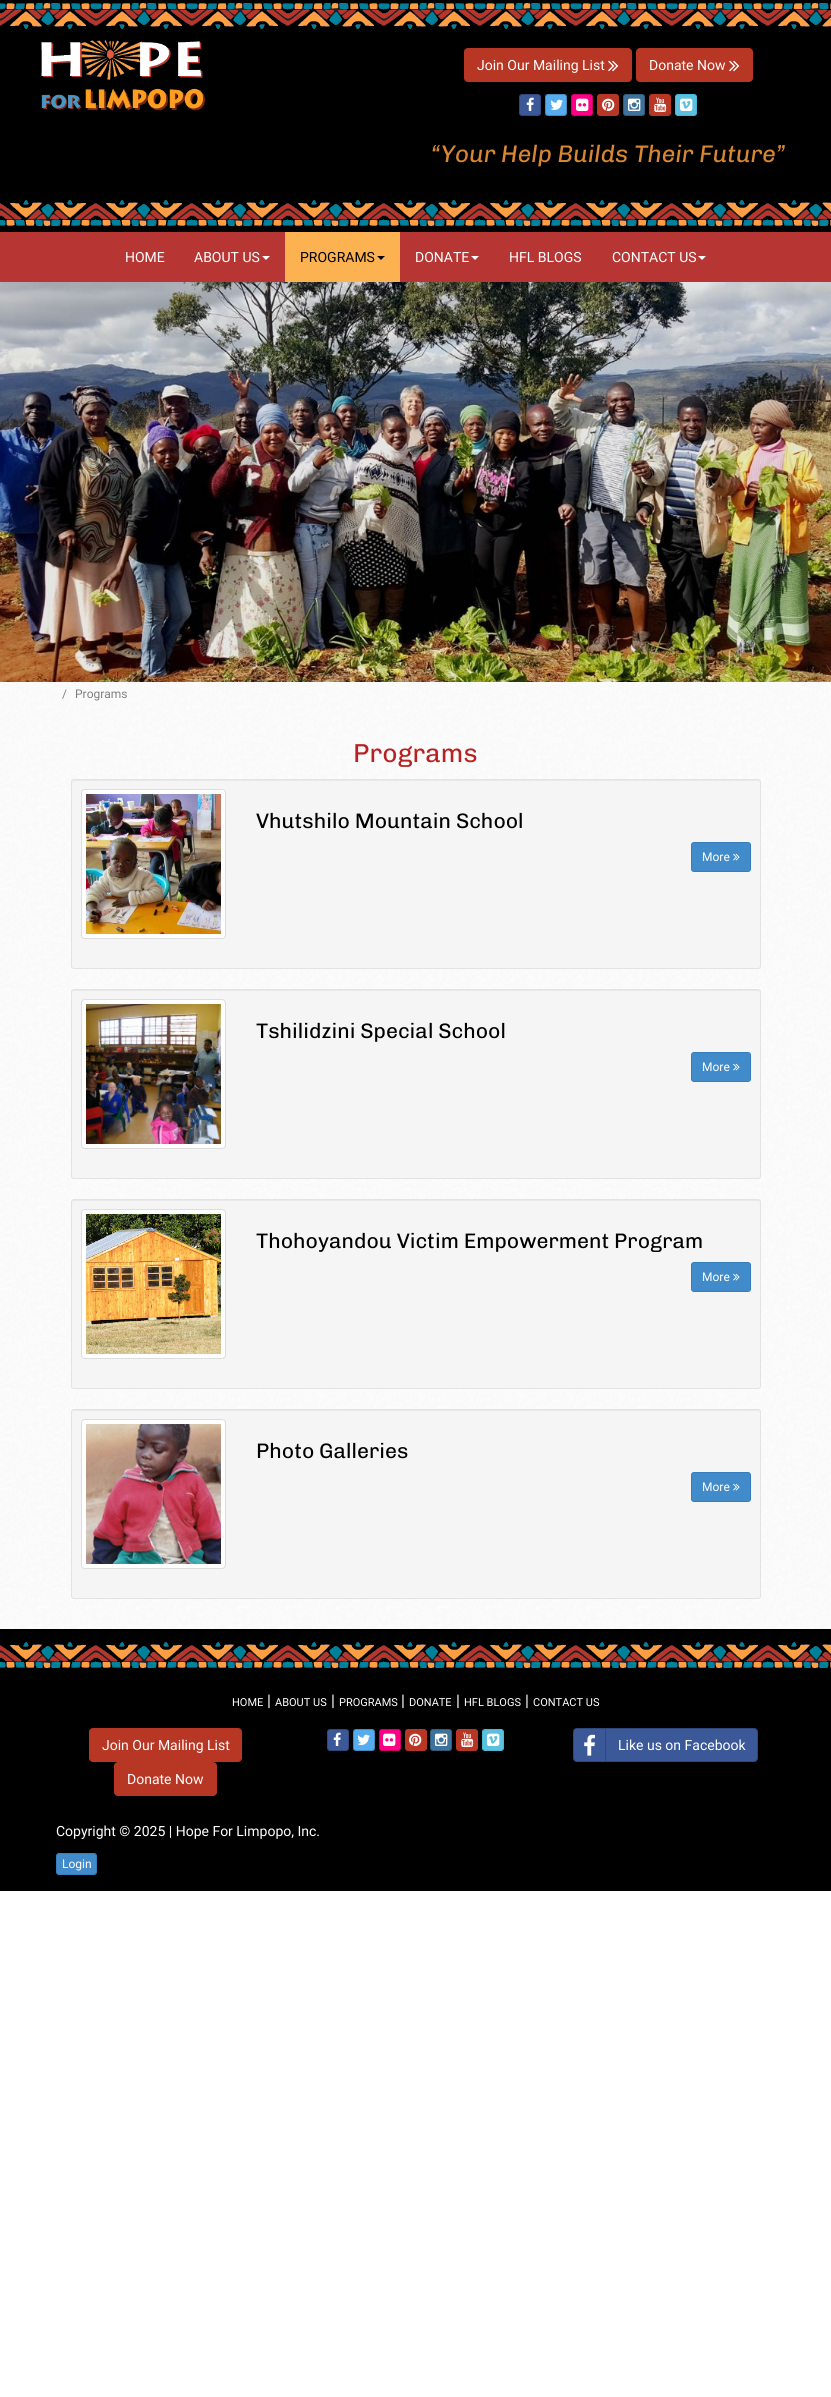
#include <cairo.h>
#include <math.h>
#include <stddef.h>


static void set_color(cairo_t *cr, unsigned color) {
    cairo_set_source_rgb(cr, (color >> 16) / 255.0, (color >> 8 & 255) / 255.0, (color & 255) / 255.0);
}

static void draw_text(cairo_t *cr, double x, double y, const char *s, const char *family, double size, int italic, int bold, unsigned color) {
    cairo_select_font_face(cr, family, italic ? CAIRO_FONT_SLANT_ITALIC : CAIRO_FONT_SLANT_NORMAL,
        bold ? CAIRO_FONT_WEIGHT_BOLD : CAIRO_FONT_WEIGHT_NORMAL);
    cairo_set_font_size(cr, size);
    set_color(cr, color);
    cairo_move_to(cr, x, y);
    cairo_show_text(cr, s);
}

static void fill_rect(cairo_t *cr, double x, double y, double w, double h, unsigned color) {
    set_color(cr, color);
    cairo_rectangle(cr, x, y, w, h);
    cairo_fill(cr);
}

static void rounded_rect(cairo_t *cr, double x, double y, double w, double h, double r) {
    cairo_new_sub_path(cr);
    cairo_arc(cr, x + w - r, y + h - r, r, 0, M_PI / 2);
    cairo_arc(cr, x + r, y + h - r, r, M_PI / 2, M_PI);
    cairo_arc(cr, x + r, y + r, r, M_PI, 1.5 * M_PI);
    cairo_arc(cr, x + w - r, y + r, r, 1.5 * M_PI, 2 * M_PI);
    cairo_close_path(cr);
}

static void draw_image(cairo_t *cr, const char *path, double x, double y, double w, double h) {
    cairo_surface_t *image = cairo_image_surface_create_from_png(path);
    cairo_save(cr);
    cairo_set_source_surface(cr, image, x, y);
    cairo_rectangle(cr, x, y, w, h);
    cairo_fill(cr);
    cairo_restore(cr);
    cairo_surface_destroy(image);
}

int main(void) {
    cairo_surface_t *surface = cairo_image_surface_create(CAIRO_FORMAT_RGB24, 831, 2397);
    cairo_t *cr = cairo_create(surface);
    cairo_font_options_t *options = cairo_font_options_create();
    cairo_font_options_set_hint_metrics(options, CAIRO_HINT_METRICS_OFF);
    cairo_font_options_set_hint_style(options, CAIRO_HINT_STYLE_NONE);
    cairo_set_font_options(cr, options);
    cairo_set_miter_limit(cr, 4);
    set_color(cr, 0xFFFFFF);
    cairo_paint(cr);
    fill_rect(cr, 0, 0, 831, 232, 0x000000);
    draw_image(cr, "assets/img1.png", 0, 3, 831, 26);
    draw_image(cr, "assets/img2.png", 41, 40, 164, 71);
    set_color(cr, 0xB73624);
    rounded_rect(cr, 464.5, 48.5, 167, 33, 3.5);
    cairo_fill_preserve(cr);
    cairo_set_line_width(cr, 1);
    cairo_stroke(cr);
    draw_text(cr, 477, 70, "Join Our Mailing List", "Roboto", 14, 0, 0, 0xFFFFFF);
    draw_image(cr, "assets/img3.png", 608, 60, 11, 12);
    set_color(cr, 0xB73624);
    rounded_rect(cr, 636.5, 48.5, 116, 33, 3.5);
    cairo_fill_preserve(cr);
    cairo_stroke(cr);
    draw_text(cr, 649, 70, "Donate Now", "Roboto", 14, 0, 0, 0xFFFFFF);
    draw_image(cr, "assets/img3.png", 729, 60, 11, 12);
    set_color(cr, 0x3B5998);
    rounded_rect(cr, 519, 94, 22, 22, 3);
    cairo_fill(cr);
    rounded_rect(cr, 519.5, 94.5, 21, 21, 2.5);
    cairo_set_source_rgba(cr, 0, 0, 0, 0.2);
    cairo_stroke(cr);
    draw_image(cr, "assets/img4.png", 526, 97, 8, 14);
    set_color(cr, 0x55ACEE);
    rounded_rect(cr, 545, 94, 22, 22, 3);
    cairo_fill(cr);
    rounded_rect(cr, 545.5, 94.5, 21, 21, 2.5);
    cairo_set_source_rgba(cr, 0, 0, 0, 0.2);
    cairo_stroke(cr);
    draw_image(cr, "assets/img5.png", 550, 99, 13, 11);
    set_color(cr, 0xFF0084);
    rounded_rect(cr, 571, 94, 22, 22, 3);
    cairo_fill(cr);
    rounded_rect(cr, 571.5, 94.5, 21, 21, 2.5);
    cairo_set_source_rgba(cr, 0, 0, 0, 0.2);
    cairo_stroke(cr);
    draw_image(cr, "assets/img6.png", 576, 98, 13, 13);
    set_color(cr, 0xB73624);
    rounded_rect(cr, 597.5, 94.5, 21, 21, 2.5);
    cairo_fill_preserve(cr);
    cairo_stroke(cr);
    draw_image(cr, "assets/img7.png", 602, 98, 13, 13);
    set_color(cr, 0x3F729B);
    rounded_rect(cr, 623, 94, 22, 22, 3);
    cairo_fill(cr);
    rounded_rect(cr, 623.5, 94.5, 21, 21, 2.5);
    cairo_set_source_rgba(cr, 0, 0, 0, 0.2);
    cairo_stroke(cr);
    draw_image(cr, "assets/img8.png", 628, 98, 13, 13);
    set_color(cr, 0xB73624);
    rounded_rect(cr, 649.5, 94.5, 21, 21, 2.5);
    cairo_fill_preserve(cr);
    cairo_stroke(cr);
    draw_image(cr, "assets/img9.png", 654, 97, 13, 16);
    set_color(cr, 0x5BC0DE);
    rounded_rect(cr, 675.5, 94.5, 21, 21, 2.5);
    cairo_fill_preserve(cr);
    set_color(cr, 0x46B8DA);
    cairo_stroke(cr);
    draw_image(cr, "assets/img10.png", 680, 98, 13, 13);
    draw_text(cr, 431, 162, "“Your Help Builds Their Future”", "Chivo", 24, 1, 0, 0xD88632);
    draw_image(cr, "assets/img11.png", 0, 200, 831, 26);
    fill_rect(cr, 0, 232, 831, 50, 0xB73634);
    draw_text(cr, 125, 262, "HOME", "Roboto", 14, 0, 0, 0xFFFFFF);
    draw_text(cr, 194, 262, "ABOUT US", "Roboto", 14, 0, 0, 0xFFFFFF);
    cairo_new_path(cr);
    cairo_move_to(cr, 262, 256);
    cairo_line_to(cr, 270, 256);
    cairo_line_to(cr, 266, 260);
    cairo_close_path(cr);
    cairo_fill(cr);
    fill_rect(cr, 285, 232, 115, 50, 0xFCB251);
    draw_text(cr, 300, 262, "PROGRAMS", "Roboto", 14, 0, 0, 0x000000);
    cairo_new_path(cr);
    cairo_move_to(cr, 377, 256);
    cairo_line_to(cr, 385, 256);
    cairo_line_to(cr, 381, 260);
    cairo_close_path(cr);
    cairo_fill(cr);
    draw_text(cr, 415, 262, "DONATE", "Roboto", 14, 0, 0, 0xFFFFFF);
    cairo_new_path(cr);
    cairo_move_to(cr, 471, 256);
    cairo_line_to(cr, 479, 256);
    cairo_line_to(cr, 475, 260);
    cairo_close_path(cr);
    cairo_fill(cr);
    draw_text(cr, 509, 262, "HFL BLOGS", "Roboto", 14, 0, 0, 0xFFFFFF);
    draw_text(cr, 612, 262, "CONTACT US", "Roboto", 14, 0, 0, 0xFFFFFF);
    cairo_new_path(cr);
    cairo_move_to(cr, 698, 256);
    cairo_line_to(cr, 706, 256);
    cairo_line_to(cr, 702, 260);
    cairo_close_path(cr);
    cairo_fill(cr);
    draw_image(cr, "assets/img12.png", 0, 682, 831, 947);
    draw_image(cr, "assets/img13.png", 0, 282, 831, 400);
    draw_text(cr, 62, 698, "/", "Roboto", 12, 0, 0, 0x7F7F7F);
    draw_text(cr, 75, 698, "Programs", "Roboto", 12, 0, 0, 0x7F7F7F);
    draw_text(cr, 353, 762, "Programs", "Chivo", 26, 0, 0, 0xB82121);
    set_color(cr, 0xF5F5F5);
    rounded_rect(cr, 71, 779, 690, 190, 3);
    cairo_fill(cr);
    set_color(cr, 0xE9E9E9);
    cairo_new_path(cr);
    cairo_move_to(cr, 74, 781);
    cairo_line_to(cr, 758, 781);
    cairo_curve_to(cr, 759, 781, 760, 782, 760, 783);
    cairo_curve_to(cr, 760, 782, 760, 780, 758, 780);
    cairo_line_to(cr, 74, 780);
    cairo_curve_to(cr, 72, 780, 72, 782, 72, 783);
    cairo_curve_to(cr, 72, 782, 73, 781, 74, 781);
    cairo_close_path(cr);
    cairo_fill(cr);
    rounded_rect(cr, 71.5, 779.5, 689, 189, 2.5);
    set_color(cr, 0xE3E3E3);
    cairo_stroke(cr);
    set_color(cr, 0xFFFFFF);
    rounded_rect(cr, 81.5, 789.5, 144, 149, 3.5);
    cairo_fill_preserve(cr);
    set_color(cr, 0xDDDDDD);
    cairo_stroke(cr);
    draw_image(cr, "assets/img14.png", 86, 794, 135, 140);
    draw_text(cr, 256, 828, "Vhutshilo Mountain School", "Chivo", 21, 0, 0, 0x000000);
    set_color(cr, 0x428BCA);
    rounded_rect(cr, 691.5, 842.5, 59, 29, 2.5);
    cairo_fill_preserve(cr);
    set_color(cr, 0x357EBD);
    cairo_stroke(cr);
    draw_text(cr, 702, 861, "More", "Roboto", 12, 0, 0, 0xFFFFFF);
    draw_image(cr, "assets/img15.png", 733, 853, 7, 8);
    set_color(cr, 0xF5F5F5);
    rounded_rect(cr, 71, 989, 690, 190, 3);
    cairo_fill(cr);
    set_color(cr, 0xE9E9E9);
    cairo_new_path(cr);
    cairo_move_to(cr, 74, 991);
    cairo_line_to(cr, 758, 991);
    cairo_curve_to(cr, 759, 991, 760, 992, 760, 993);
    cairo_curve_to(cr, 760, 992, 760, 990, 758, 990);
    cairo_line_to(cr, 74, 990);
    cairo_curve_to(cr, 72, 990, 72, 992, 72, 993);
    cairo_curve_to(cr, 72, 992, 73, 991, 74, 991);
    cairo_close_path(cr);
    cairo_fill(cr);
    rounded_rect(cr, 71.5, 989.5, 689, 189, 2.5);
    set_color(cr, 0xE3E3E3);
    cairo_stroke(cr);
    set_color(cr, 0xFFFFFF);
    rounded_rect(cr, 81.5, 999.5, 144, 149, 3.5);
    cairo_fill_preserve(cr);
    set_color(cr, 0xDDDDDD);
    cairo_stroke(cr);
    draw_image(cr, "assets/img16.png", 86, 1004, 135, 140);
    draw_text(cr, 256, 1038, "Tshilidzini Special School", "Chivo", 21, 0, 0, 0x000000);
    set_color(cr, 0x428BCA);
    rounded_rect(cr, 691.5, 1052.5, 59, 29, 2.5);
    cairo_fill_preserve(cr);
    set_color(cr, 0x357EBD);
    cairo_stroke(cr);
    draw_text(cr, 702, 1071, "More", "Roboto", 12, 0, 0, 0xFFFFFF);
    draw_image(cr, "assets/img15.png", 733, 1063, 7, 8);
    set_color(cr, 0xF5F5F5);
    rounded_rect(cr, 71, 1199, 690, 190, 3);
    cairo_fill(cr);
    set_color(cr, 0xE9E9E9);
    cairo_new_path(cr);
    cairo_move_to(cr, 74, 1201);
    cairo_line_to(cr, 758, 1201);
    cairo_curve_to(cr, 759, 1201, 760, 1202, 760, 1203);
    cairo_curve_to(cr, 760, 1202, 760, 1200, 758, 1200);
    cairo_line_to(cr, 74, 1200);
    cairo_curve_to(cr, 72, 1200, 72, 1202, 72, 1203);
    cairo_curve_to(cr, 72, 1202, 73, 1201, 74, 1201);
    cairo_close_path(cr);
    cairo_fill(cr);
    rounded_rect(cr, 71.5, 1199.5, 689, 189, 2.5);
    set_color(cr, 0xE3E3E3);
    cairo_stroke(cr);
    set_color(cr, 0xFFFFFF);
    rounded_rect(cr, 81.5, 1209.5, 144, 149, 3.5);
    cairo_fill_preserve(cr);
    set_color(cr, 0xDDDDDD);
    cairo_stroke(cr);
    draw_image(cr, "assets/img17.png", 86, 1214, 135, 140);
    draw_text(cr, 256, 1248, "Thohoyandou Victim Empowerment Program", "Chivo", 21, 0, 0, 0x000000);
    set_color(cr, 0x428BCA);
    rounded_rect(cr, 691.5, 1262.5, 59, 29, 2.5);
    cairo_fill_preserve(cr);
    set_color(cr, 0x357EBD);
    cairo_stroke(cr);
    draw_text(cr, 702, 1281, "More", "Roboto", 12, 0, 0, 0xFFFFFF);
    draw_image(cr, "assets/img15.png", 733, 1273, 7, 8);
    set_color(cr, 0xF5F5F5);
    rounded_rect(cr, 71, 1409, 690, 190, 3);
    cairo_fill(cr);
    set_color(cr, 0xE9E9E9);
    cairo_new_path(cr);
    cairo_move_to(cr, 74, 1411);
    cairo_line_to(cr, 758, 1411);
    cairo_curve_to(cr, 759, 1411, 760, 1412, 760, 1413);
    cairo_curve_to(cr, 760, 1412, 760, 1410, 758, 1410);
    cairo_line_to(cr, 74, 1410);
    cairo_curve_to(cr, 72, 1410, 72, 1412, 72, 1413);
    cairo_curve_to(cr, 72, 1412, 73, 1411, 74, 1411);
    cairo_close_path(cr);
    cairo_fill(cr);
    rounded_rect(cr, 71.5, 1409.5, 689, 189, 2.5);
    set_color(cr, 0xE3E3E3);
    cairo_stroke(cr);
    set_color(cr, 0xFFFFFF);
    rounded_rect(cr, 81.5, 1419.5, 144, 149, 3.5);
    cairo_fill_preserve(cr);
    set_color(cr, 0xDDDDDD);
    cairo_stroke(cr);
    draw_image(cr, "assets/img18.png", 86, 1424, 135, 140);
    draw_text(cr, 256, 1458, "Photo Galleries", "Chivo", 21, 0, 0, 0x000000);
    set_color(cr, 0x428BCA);
    rounded_rect(cr, 691.5, 1472.5, 59, 29, 2.5);
    cairo_fill_preserve(cr);
    set_color(cr, 0x357EBD);
    cairo_stroke(cr);
    draw_text(cr, 702, 1491, "More", "Roboto", 12, 0, 0, 0xFFFFFF);
    draw_image(cr, "assets/img15.png", 733, 1483, 7, 8);
    fill_rect(cr, 0, 1629, 831, 262, 0x000000);
    draw_image(cr, "assets/img11.png", 0, 1642, 831, 26);
    draw_text(cr, 232, 1706, "HOME", "Roboto", 11, 0, 0, 0xFFFFFF);
    draw_text(cr, 267, 1706, "|", "Roboto", 16, 0, 0, 0xFFFFFF);
    draw_text(cr, 275, 1706, "ABOUT US", "Roboto", 11, 0, 0, 0xFFFFFF);
    draw_text(cr, 331, 1706, "|", "Roboto", 16, 0, 0, 0xFFFFFF);
    draw_text(cr, 339, 1706, "PROGRAMS", "Roboto", 11, 0, 0, 0xFFFFFF);
    draw_text(cr, 401, 1706, "|", "Roboto", 16, 0, 0, 0xFFFFFF);
    draw_text(cr, 409, 1706, "DONATE", "Roboto", 11, 0, 0, 0xFFFFFF);
    draw_text(cr, 456, 1706, "|", "Roboto", 16, 0, 0, 0xFFFFFF);
    draw_text(cr, 464, 1706, "HFL BLOGS", "Roboto", 11, 0, 0, 0xFFFFFF);
    draw_text(cr, 525, 1706, "|", "Roboto", 16, 0, 0, 0xFFFFFF);
    draw_text(cr, 533, 1706, "CONTACT US", "Roboto", 11, 0, 0, 0xFFFFFF);
    set_color(cr, 0xB73624);
    rounded_rect(cr, 89.5, 1728.5, 152, 33, 3.5);
    cairo_fill_preserve(cr);
    cairo_stroke(cr);
    draw_text(cr, 102, 1750, "Join Our Mailing List", "Roboto", 14, 0, 0, 0xFFFFFF);
    set_color(cr, 0xB73624);
    rounded_rect(cr, 114.5, 1762.5, 102, 33, 3.5);
    cairo_fill_preserve(cr);
    cairo_stroke(cr);
    draw_text(cr, 127, 1784, "Donate Now", "Roboto", 14, 0, 0, 0xFFFFFF);
    set_color(cr, 0x3B5998);
    rounded_rect(cr, 327, 1729, 22, 22, 3);
    cairo_fill(cr);
    rounded_rect(cr, 327.5, 1729.5, 21, 21, 2.5);
    cairo_set_source_rgba(cr, 0, 0, 0, 0.2);
    cairo_stroke(cr);
    draw_image(cr, "assets/img4.png", 333, 1732, 8, 14);
    set_color(cr, 0x55ACEE);
    rounded_rect(cr, 353, 1729, 22, 22, 3);
    cairo_fill(cr);
    rounded_rect(cr, 353.5, 1729.5, 21, 21, 2.5);
    cairo_set_source_rgba(cr, 0, 0, 0, 0.2);
    cairo_stroke(cr);
    draw_image(cr, "assets/img5.png", 357, 1734, 13, 11);
    set_color(cr, 0xFF0084);
    rounded_rect(cr, 379, 1729, 22, 22, 3);
    cairo_fill(cr);
    rounded_rect(cr, 379.5, 1729.5, 21, 21, 2.5);
    cairo_set_source_rgba(cr, 0, 0, 0, 0.2);
    cairo_stroke(cr);
    draw_image(cr, "assets/img6.png", 383, 1733, 13, 13);
    set_color(cr, 0xB73624);
    rounded_rect(cr, 405.5, 1729.5, 21, 21, 2.5);
    cairo_fill_preserve(cr);
    cairo_stroke(cr);
    draw_image(cr, "assets/img7.png", 409, 1733, 13, 13);
    set_color(cr, 0x3F729B);
    rounded_rect(cr, 430, 1729, 22, 22, 3);
    cairo_fill(cr);
    rounded_rect(cr, 430.5, 1729.5, 21, 21, 2.5);
    cairo_set_source_rgba(cr, 0, 0, 0, 0.2);
    cairo_stroke(cr);
    draw_image(cr, "assets/img8.png", 435, 1733, 13, 13);
    set_color(cr, 0xB73624);
    rounded_rect(cr, 456.5, 1729.5, 21, 21, 2.5);
    cairo_fill_preserve(cr);
    cairo_stroke(cr);
    draw_image(cr, "assets/img9.png", 461, 1732, 13, 16);
    set_color(cr, 0x5BC0DE);
    rounded_rect(cr, 482.5, 1729.5, 21, 21, 2.5);
    cairo_fill_preserve(cr);
    set_color(cr, 0x46B8DA);
    cairo_stroke(cr);
    draw_image(cr, "assets/img10.png", 487, 1733, 13, 13);
    set_color(cr, 0x3B5998);
    rounded_rect(cr, 573, 1728, 185, 34, 4);
    cairo_fill(cr);
    rounded_rect(cr, 573.5, 1728.5, 184, 33, 3.5);
    cairo_set_source_rgba(cr, 0, 0, 0, 0.2);
    cairo_stroke(cr);
    fill_rect(cr, 605, 1729, 1, 32, 0x2F477A);
    draw_image(cr, "assets/img19.png", 584, 1734, 11, 22);
    draw_text(cr, 618, 1750, "Like us on Facebook", "Roboto", 14, 0, 0, 0xFFFFFF);
    draw_text(cr, 56, 1836, "Copyright © 2025 | Hope For Limpopo, Inc.", "Roboto", 14, 0, 0, 0xFFFFFF);
    set_color(cr, 0x428BCA);
    rounded_rect(cr, 56.5, 1853.5, 40, 21, 2.5);
    cairo_fill_preserve(cr);
    set_color(cr, 0x357EBD);
    cairo_stroke(cr);
    draw_text(cr, 62, 1868, "Login", "Roboto", 12, 0, 0, 0xFFFFFF);
    cairo_surface_write_to_png(surface, "output.png");
    cairo_font_options_destroy(options);
    cairo_destroy(cr);
    cairo_surface_destroy(surface);
    return 0;
}
